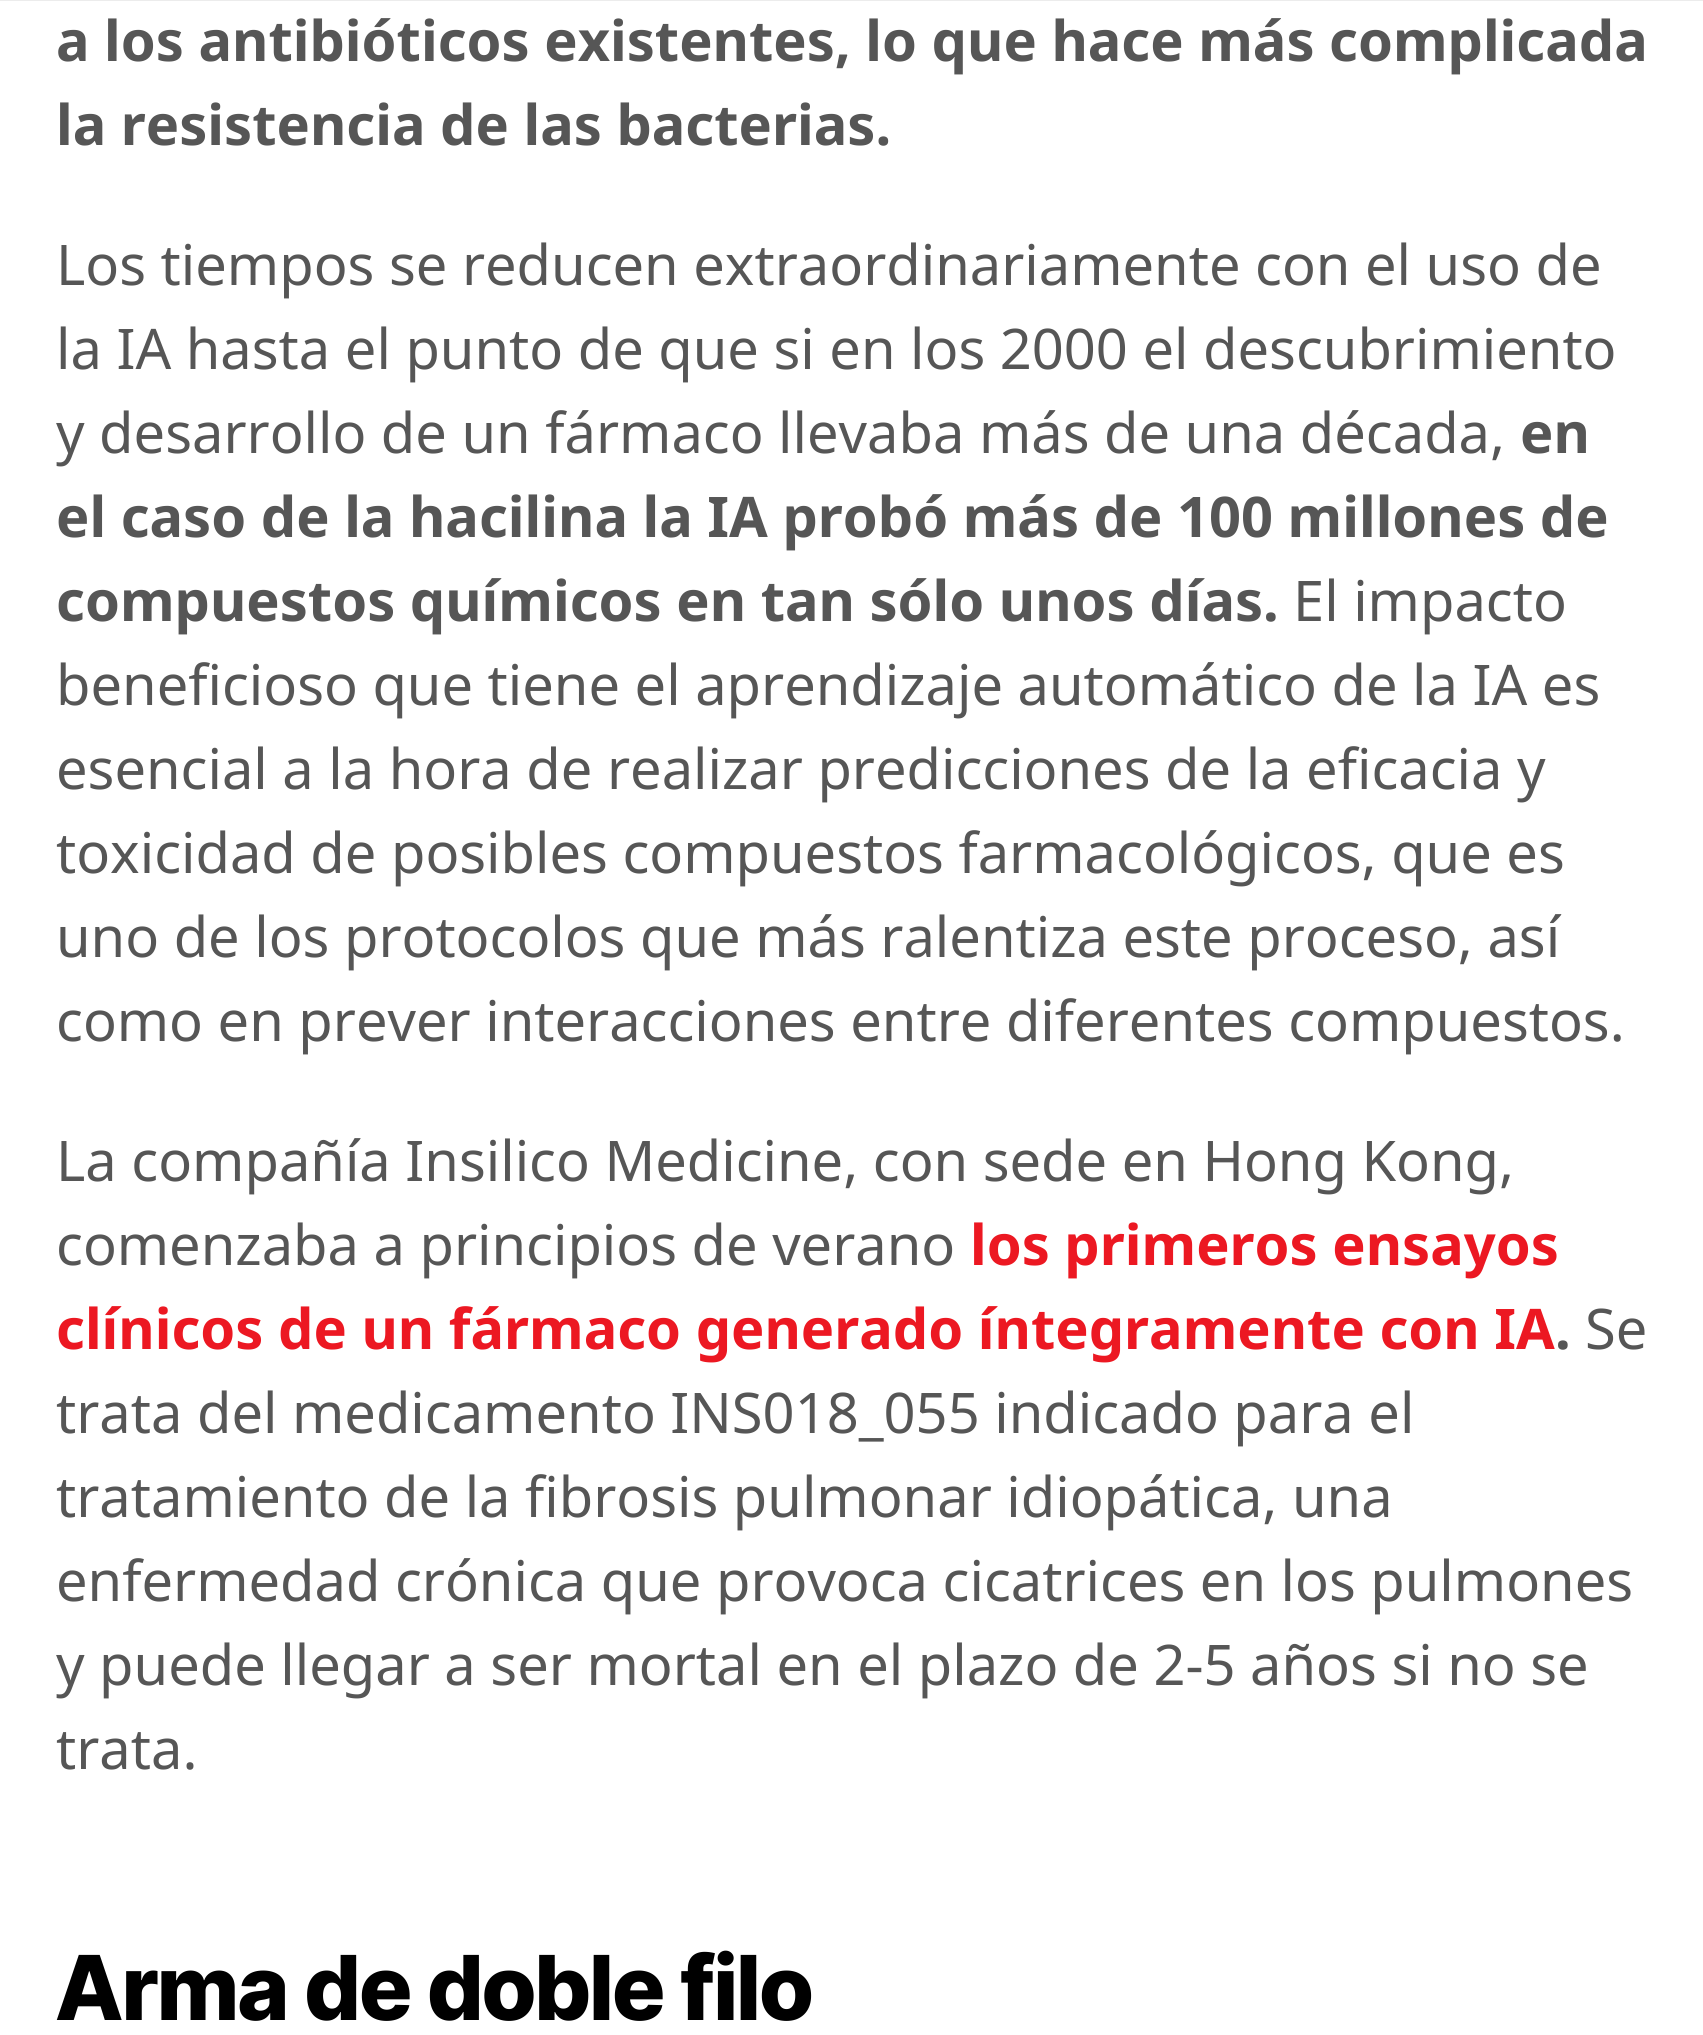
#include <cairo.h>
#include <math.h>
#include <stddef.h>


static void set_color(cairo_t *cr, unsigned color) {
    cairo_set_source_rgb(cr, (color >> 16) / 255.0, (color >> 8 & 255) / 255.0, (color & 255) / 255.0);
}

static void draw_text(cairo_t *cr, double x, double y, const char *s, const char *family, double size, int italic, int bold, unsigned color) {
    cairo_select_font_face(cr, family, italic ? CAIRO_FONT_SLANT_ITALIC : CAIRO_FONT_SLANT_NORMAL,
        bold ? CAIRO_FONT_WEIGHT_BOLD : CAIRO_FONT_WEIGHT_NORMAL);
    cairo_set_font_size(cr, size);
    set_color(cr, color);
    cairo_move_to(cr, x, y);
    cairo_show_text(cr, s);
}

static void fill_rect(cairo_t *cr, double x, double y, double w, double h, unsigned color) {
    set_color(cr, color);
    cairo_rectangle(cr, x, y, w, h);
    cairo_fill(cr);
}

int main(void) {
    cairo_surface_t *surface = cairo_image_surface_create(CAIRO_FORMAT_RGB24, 1703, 2035);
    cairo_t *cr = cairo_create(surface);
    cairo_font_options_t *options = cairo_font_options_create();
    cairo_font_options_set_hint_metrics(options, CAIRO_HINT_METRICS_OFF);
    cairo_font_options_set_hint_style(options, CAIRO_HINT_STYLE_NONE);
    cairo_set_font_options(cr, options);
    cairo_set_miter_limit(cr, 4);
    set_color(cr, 0xFFFFFF);
    cairo_paint(cr);
    fill_rect(cr, 0, 0, 1703, 1, 0xECECEC);
    draw_text(cr, 56, 61, "a los antibióticos existentes, lo que hace más complicada", "Noto Sans", 56, 0, 1, 0x565656);
    draw_text(cr, 56, 145, "la resistencia de las bacterias.", "Noto Sans", 56, 0, 1, 0x565656);
    draw_text(cr, 56, 285, "Los tiempos se reducen extraordinariamente con el uso de", "Noto Sans", 56, 0, 0, 0x565656);
    draw_text(cr, 56, 369, "la IA hasta el punto de que si en los 2000 el descubrimiento", "Noto Sans", 56, 0, 0, 0x565656);
    draw_text(cr, 56, 453, "y desarrollo de un fármaco llevaba más de una década,", "Noto Sans", 56, 0, 0, 0x565656);
    draw_text(cr, 1520, 453, "en", "Noto Sans", 56, 0, 1, 0x565656);
    draw_text(cr, 56, 537, "el caso de la hacilina la IA probó más de 100 millones de", "Noto Sans", 56, 0, 1, 0x565656);
    draw_text(cr, 56, 621, "compuestos químicos en tan sólo unos días.", "Noto Sans", 56, 0, 1, 0x565656);
    draw_text(cr, 1293, 621, "El impacto", "Noto Sans", 56, 0, 0, 0x565656);
    draw_text(cr, 56, 705, "beneficioso que tiene el aprendizaje automático de la IA es", "Noto Sans", 56, 0, 0, 0x565656);
    draw_text(cr, 56, 789, "esencial a la hora de realizar predicciones de la eficacia y", "Noto Sans", 56, 0, 0, 0x565656);
    draw_text(cr, 56, 873, "toxicidad de posibles compuestos farmacológicos, que es", "Noto Sans", 56, 0, 0, 0x565656);
    draw_text(cr, 56, 957, "uno de los protocolos que más ralentiza este proceso, así", "Noto Sans", 56, 0, 0, 0x565656);
    draw_text(cr, 56, 1041, "como en prever interacciones entre diferentes compuestos.", "Noto Sans", 56, 0, 0, 0x565656);
    draw_text(cr, 56, 1181, "La compañía Insilico Medicine, con sede en Hong Kong,", "Noto Sans", 56, 0, 0, 0x565656);
    draw_text(cr, 56, 1265, "comenzaba a principios de verano", "Noto Sans", 56, 0, 0, 0x565656);
    draw_text(cr, 970, 1265, "los primeros ensayos", "Noto Sans", 56, 0, 1, 0xEC1822);
    draw_text(cr, 56, 1349, "clínicos de un fármaco generado íntegramente con IA", "Noto Sans", 56, 0, 1, 0xEC1822);
    draw_text(cr, 1555, 1349, ".", "Noto Sans", 56, 0, 1, 0x565656);
    draw_text(cr, 1585, 1349, "Se", "Noto Sans", 56, 0, 0, 0x565656);
    draw_text(cr, 56, 1433, "trata del medicamento INS018_055 indicado para el", "Noto Sans", 56, 0, 0, 0x565656);
    draw_text(cr, 56, 1517, "tratamiento de la fibrosis pulmonar idiopática, una", "Noto Sans", 56, 0, 0, 0x565656);
    draw_text(cr, 56, 1601, "enfermedad crónica que provoca cicatrices en los pulmones", "Noto Sans", 56, 0, 0, 0x565656);
    draw_text(cr, 56, 1685, "y puede llegar a ser mortal en el plazo de 2-5 años si no se", "Noto Sans", 56, 0, 0, 0x565656);
    draw_text(cr, 56, 1769, "trata.", "Noto Sans", 56, 0, 0, 0x565656);
    draw_text(cr, 56, 2020, "Arma de doble filo", "Inter Tight ExtraBold", 89.5, 0, 0, 0x000000);
    cairo_surface_write_to_png(surface, "output.png");
    cairo_font_options_destroy(options);
    cairo_destroy(cr);
    cairo_surface_destroy(surface);
    return 0;
}
